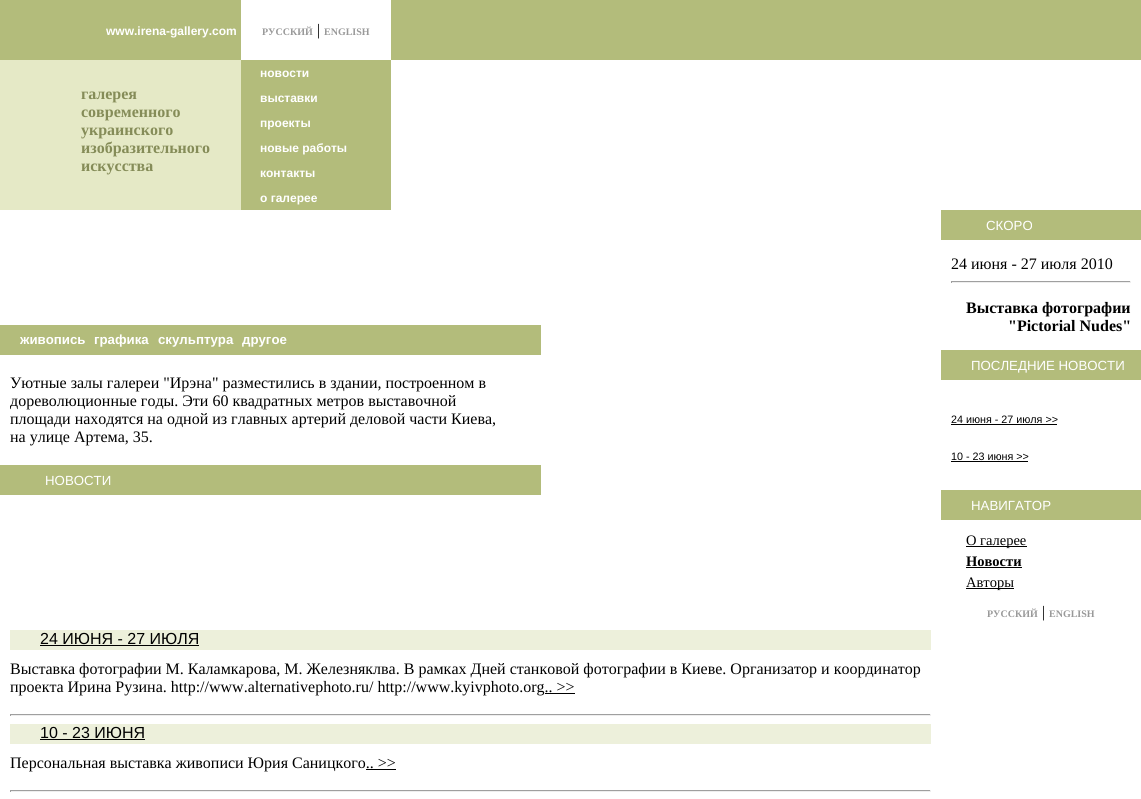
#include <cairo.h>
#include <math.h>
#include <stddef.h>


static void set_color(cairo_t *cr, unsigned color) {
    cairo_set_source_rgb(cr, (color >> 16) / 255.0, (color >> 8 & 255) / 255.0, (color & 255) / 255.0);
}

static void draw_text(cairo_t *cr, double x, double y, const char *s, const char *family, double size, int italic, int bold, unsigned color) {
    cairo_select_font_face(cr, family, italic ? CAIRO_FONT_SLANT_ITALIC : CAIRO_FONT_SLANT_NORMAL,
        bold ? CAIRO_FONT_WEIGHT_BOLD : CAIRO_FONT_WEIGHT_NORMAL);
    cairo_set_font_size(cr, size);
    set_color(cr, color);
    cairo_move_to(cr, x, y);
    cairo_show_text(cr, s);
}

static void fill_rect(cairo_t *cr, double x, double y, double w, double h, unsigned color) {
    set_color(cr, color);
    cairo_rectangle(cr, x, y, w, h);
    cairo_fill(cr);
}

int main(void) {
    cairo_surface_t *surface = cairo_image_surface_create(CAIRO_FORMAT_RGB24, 1141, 799);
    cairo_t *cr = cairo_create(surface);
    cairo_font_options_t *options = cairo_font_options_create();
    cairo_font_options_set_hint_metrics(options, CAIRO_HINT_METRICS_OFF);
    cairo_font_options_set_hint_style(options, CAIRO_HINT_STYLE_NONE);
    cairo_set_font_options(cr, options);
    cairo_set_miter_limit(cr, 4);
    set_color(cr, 0xFFFFFF);
    cairo_paint(cr);
    fill_rect(cr, 0, 0, 241, 60, 0xB3BC7B);
    draw_text(cr, 106, 35, "www.irena-gallery.com", "Liberation Sans", 12, 0, 1, 0xFFFFFF);
    draw_text(cr, 262, 35, "РУССКИЙ", "Liberation Serif", 10, 0, 1, 0x999999);
    draw_text(cr, 317, 35, "|", "Liberation Serif", 16, 0, 0, 0x000000);
    draw_text(cr, 324, 35, "ENGLISH", "Liberation Serif", 10, 0, 1, 0x999999);
    fill_rect(cr, 391, 0, 750, 60, 0xB3BC7B);
    fill_rect(cr, 0, 60, 241, 150, 0xE5E9C6);
    draw_text(cr, 81, 99, "галерея", "Liberation Serif", 16, 0, 1, 0x858C58);
    draw_text(cr, 81, 117, "современного", "Liberation Serif", 16, 0, 1, 0x858C58);
    draw_text(cr, 81, 135, "украинского", "Liberation Serif", 16, 0, 1, 0x858C58);
    draw_text(cr, 81, 153, "изобразительного", "Liberation Serif", 16, 0, 1, 0x858C58);
    draw_text(cr, 81, 171, "искусства", "Liberation Serif", 16, 0, 1, 0x858C58);
    fill_rect(cr, 241, 60, 150, 150, 0xB3BC7B);
    draw_text(cr, 260, 77, "новости", "Liberation Sans", 12, 0, 1, 0xFFFFFF);
    draw_text(cr, 260, 102, "выставки", "Liberation Sans", 12, 0, 1, 0xFFFFFF);
    draw_text(cr, 260, 127, "проекты", "Liberation Sans", 12, 0, 1, 0xFFFFFF);
    draw_text(cr, 260, 152, "новые работы", "Liberation Sans", 12, 0, 1, 0xFFFFFF);
    draw_text(cr, 260, 177, "контакты", "Liberation Sans", 12, 0, 1, 0xFFFFFF);
    draw_text(cr, 260, 202, "о галерее", "Liberation Sans", 12, 0, 1, 0xFFFFFF);
    fill_rect(cr, 0, 325, 541, 30, 0xB3BC7B);
    draw_text(cr, 20, 344, "живопись", "Liberation Sans", 13.25, 0, 1, 0xFFFFFF);
    draw_text(cr, 94, 344, "графика", "Liberation Sans", 13.25, 0, 1, 0xFFFFFF);
    draw_text(cr, 158, 344, "скульптура", "Liberation Sans", 13.25, 0, 1, 0xFFFFFF);
    draw_text(cr, 242, 344, "другое", "Liberation Sans", 13.25, 0, 1, 0xFFFFFF);
    draw_text(cr, 10, 388, "Уютные залы галереи \"Ирэна\" разместились в здании, построенном в", "Liberation Serif", 16, 0, 0, 0x000000);
    draw_text(cr, 10, 406, "дореволюционные годы. Эти 60 квадратных метров выставочной", "Liberation Serif", 16, 0, 0, 0x000000);
    draw_text(cr, 10, 424, "площади находятся на одной из главных артерий деловой части Киева,", "Liberation Serif", 16, 0, 0, 0x000000);
    draw_text(cr, 10, 442, "на улице Артема, 35.", "Liberation Serif", 16, 0, 0, 0x000000);
    fill_rect(cr, 0, 465, 541, 30, 0xB3BC7B);
    draw_text(cr, 45, 485, "НОВОСТИ", "Liberation Sans", 13.25, 0, 0, 0xFFFFFF);
    fill_rect(cr, 10, 630, 921, 20, 0xEDF0DB);
    draw_text(cr, 40, 644, "24 ИЮНЯ - 27 ИЮЛЯ", "Liberation Sans", 16, 0, 0, 0x000000);
    fill_rect(cr, 40, 645, 159, 1, 0x000000);
    draw_text(cr, 10, 674, "Выставка фотографии М. Каламкарова, М. Железняклва. В рамках Дней станковой фотографии в Киеве. Организатор и координатор", "Liberation Serif", 16, 0, 0, 0x000000);
    draw_text(cr, 10, 692, "проекта Ирина Рузина. http://www.alternativephoto.ru/ http://www.kyivphoto.org.. >>", "Liberation Serif", 16, 0, 0, 0x000000);
    fill_rect(cr, 545, 693, 30, 1, 0x000000);
    fill_rect(cr, 10, 714, 921, 1, 0x9F9F9F);
    fill_rect(cr, 930, 714, 1, 2, 0xEEEEEE);
    fill_rect(cr, 10, 715, 921, 1, 0xEEEEEE);
    fill_rect(cr, 10, 714, 1, 2, 0x9F9F9F);
    fill_rect(cr, 10, 724, 921, 20, 0xEDF0DB);
    draw_text(cr, 40, 738, "10 - 23 ИЮНЯ", "Liberation Sans", 16, 0, 0, 0x000000);
    fill_rect(cr, 40, 739, 105, 1, 0x000000);
    draw_text(cr, 10, 768, "Персональная выставка живописи Юрия Саницкого.. >>", "Liberation Serif", 16, 0, 0, 0x000000);
    fill_rect(cr, 366, 769, 30, 1, 0x000000);
    fill_rect(cr, 10, 790, 921, 1, 0x9F9F9F);
    fill_rect(cr, 930, 790, 1, 2, 0xEEEEEE);
    fill_rect(cr, 10, 791, 921, 1, 0xEEEEEE);
    fill_rect(cr, 10, 790, 1, 2, 0x9F9F9F);
    fill_rect(cr, 941, 210, 200, 30, 0xB3BC7B);
    draw_text(cr, 986, 230, "СКОРО", "Liberation Sans", 13.25, 0, 0, 0xFFFFFF);
    draw_text(cr, 951, 269, "24 июня - 27 июля 2010", "Liberation Serif", 16, 0, 0, 0x000000);
    fill_rect(cr, 951, 281, 180, 1, 0x9F9F9F);
    fill_rect(cr, 1130, 281, 1, 2, 0xEEEEEE);
    fill_rect(cr, 951, 282, 180, 1, 0xEEEEEE);
    fill_rect(cr, 951, 281, 1, 2, 0x9F9F9F);
    draw_text(cr, 966, 313, "Выставка фотографии", "Liberation Serif", 16, 0, 1, 0x000000);
    draw_text(cr, 1008, 331, "\"Pictorial Nudes\"", "Liberation Serif", 16, 0, 1, 0x000000);
    fill_rect(cr, 941, 350, 200, 30, 0xB3BC7B);
    draw_text(cr, 971, 370, "ПОСЛЕДНИЕ НОВОСТИ", "Liberation Sans", 13.25, 0, 0, 0xFFFFFF);
    draw_text(cr, 951, 423, "24 июня - 27 июля >>", "Liberation Sans", 10.75, 0, 0, 0x000000);
    fill_rect(cr, 951, 424, 106, 1, 0x000000);
    draw_text(cr, 951, 460, "10 - 23 июня >>", "Liberation Sans", 10.75, 0, 0, 0x000000);
    fill_rect(cr, 951, 461, 77, 1, 0x000000);
    fill_rect(cr, 941, 490, 200, 30, 0xB3BC7B);
    draw_text(cr, 971, 510, "НАВИГАТОР", "Liberation Sans", 13.25, 0, 0, 0xFFFFFF);
    fill_rect(cr, 966, 546, 61, 1, 0x000000);
    draw_text(cr, 966, 545, "О галерее", "Liberation Serif", 14.5, 0, 0, 0x000000);
    draw_text(cr, 966, 566, "Новости", "Liberation Serif", 14.5, 0, 1, 0x000000);
    fill_rect(cr, 966, 567, 56, 1, 0x000000);
    fill_rect(cr, 966, 588, 48, 1, 0x000000);
    draw_text(cr, 966, 587, "Авторы", "Liberation Serif", 14.5, 0, 0, 0x000000);
    draw_text(cr, 987, 617, "РУССКИЙ", "Liberation Serif", 10, 0, 1, 0x999999);
    draw_text(cr, 1042, 617, "|", "Liberation Serif", 16, 0, 0, 0x000000);
    draw_text(cr, 1049, 617, "ENGLISH", "Liberation Serif", 10, 0, 1, 0x999999);
    cairo_surface_write_to_png(surface, "output.png");
    cairo_font_options_destroy(options);
    cairo_destroy(cr);
    cairo_surface_destroy(surface);
    return 0;
}
